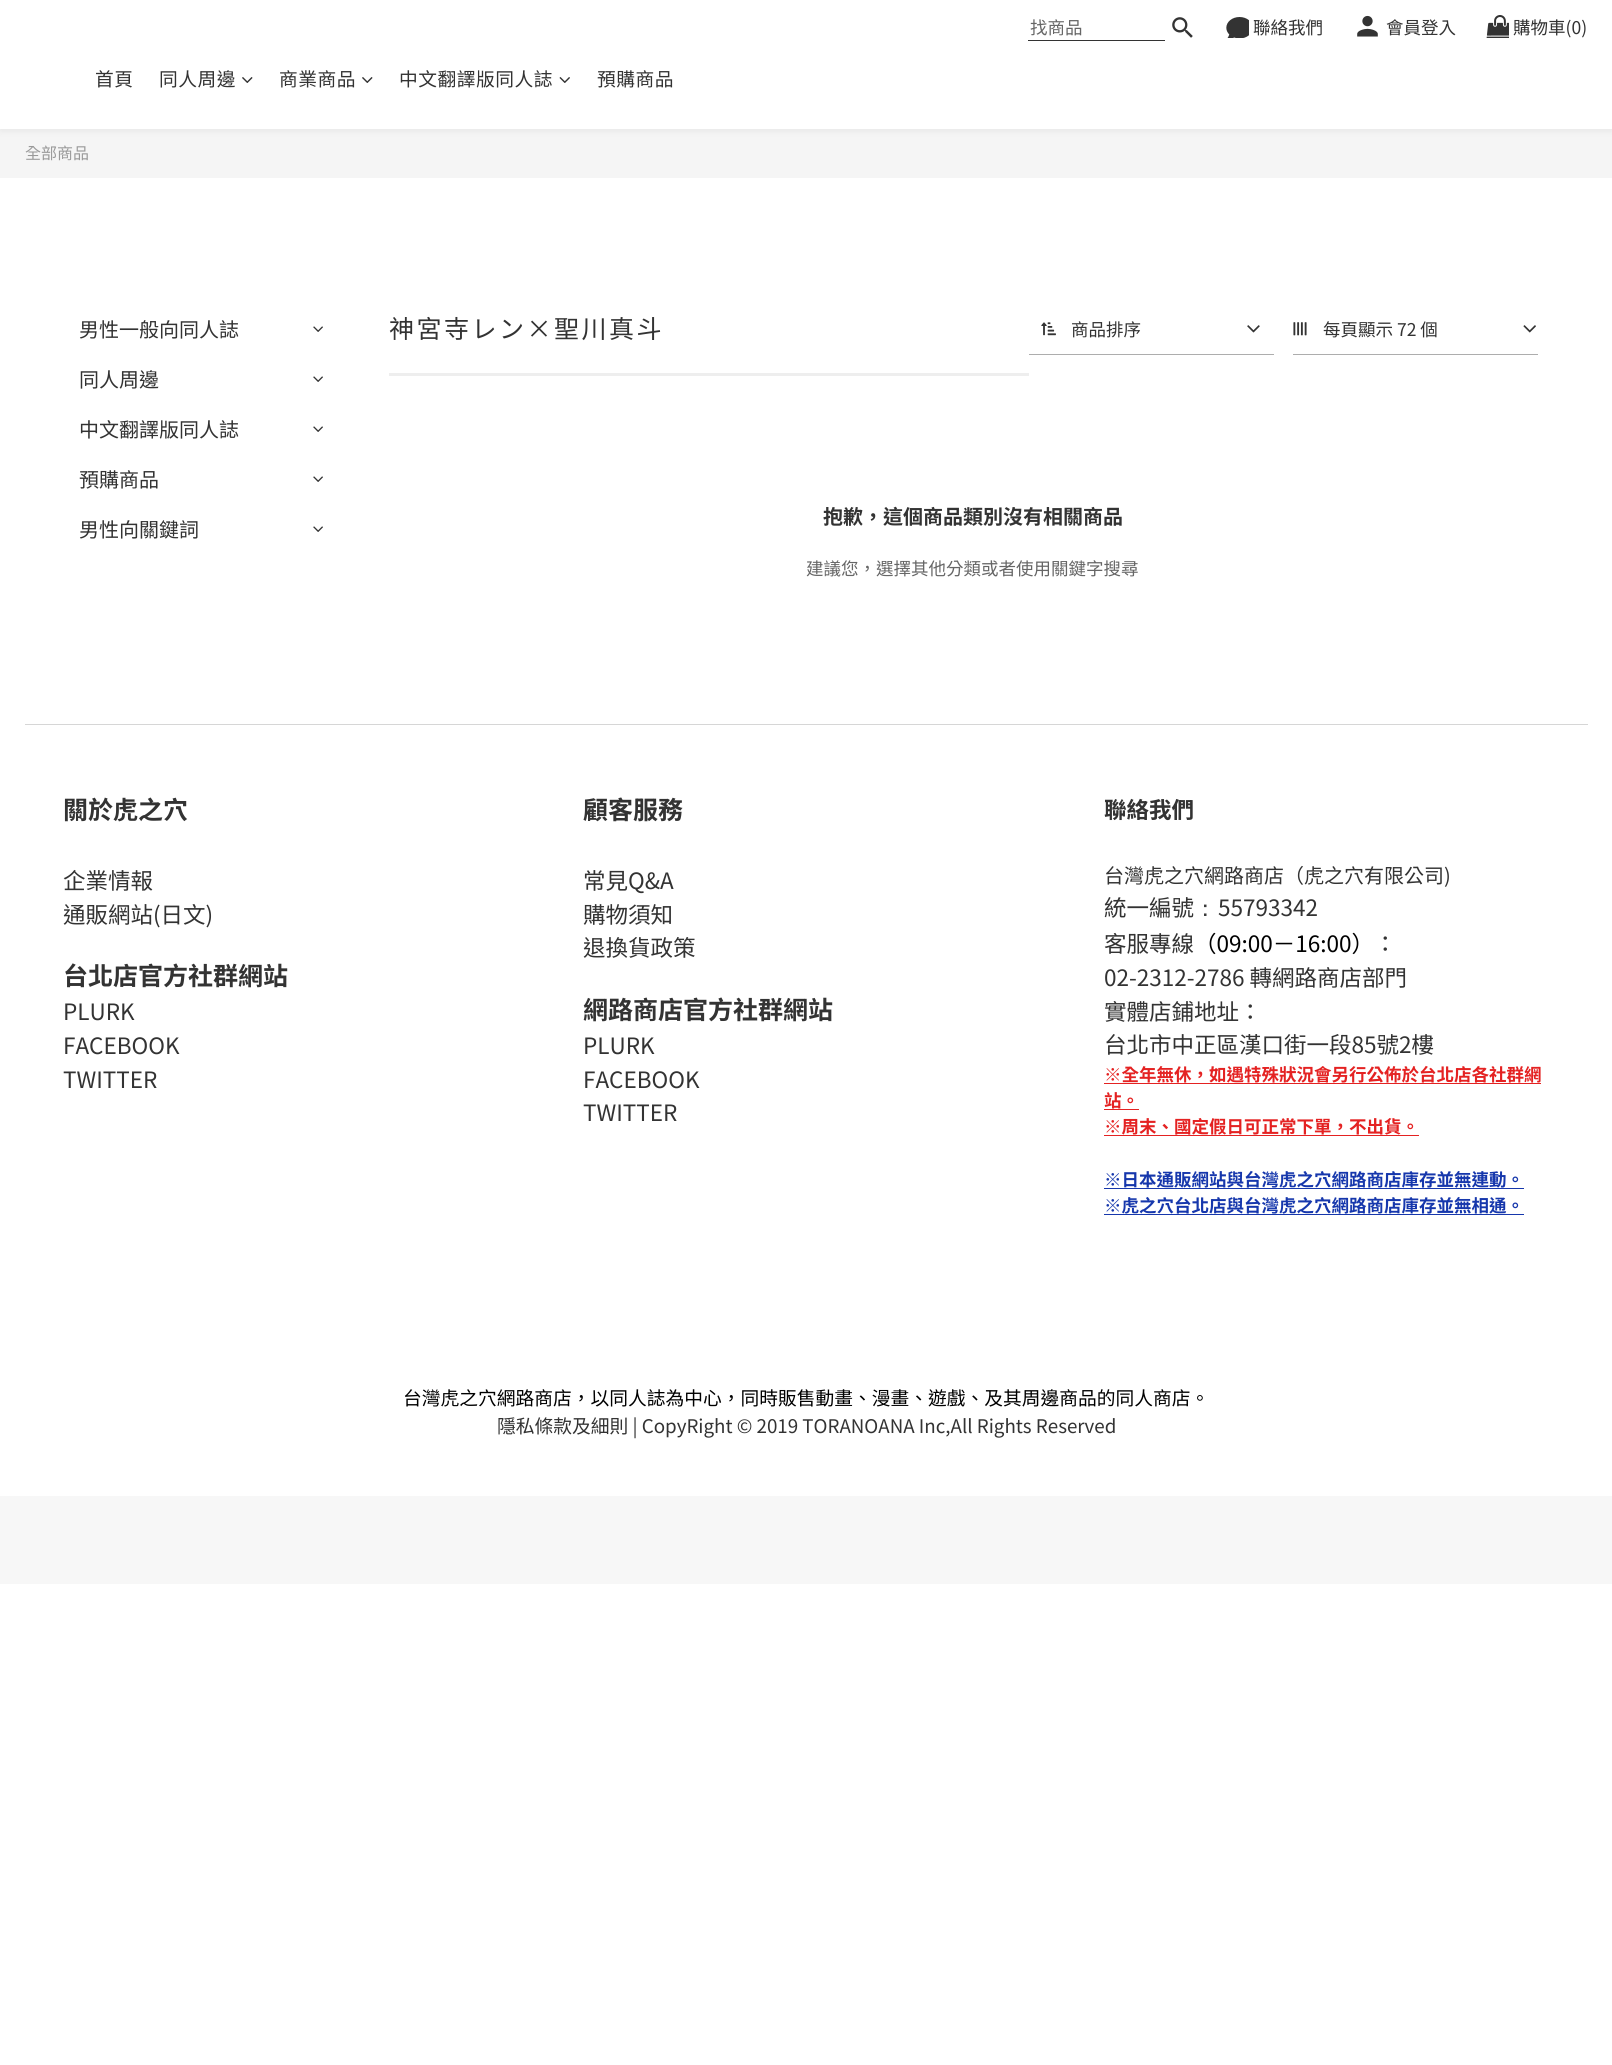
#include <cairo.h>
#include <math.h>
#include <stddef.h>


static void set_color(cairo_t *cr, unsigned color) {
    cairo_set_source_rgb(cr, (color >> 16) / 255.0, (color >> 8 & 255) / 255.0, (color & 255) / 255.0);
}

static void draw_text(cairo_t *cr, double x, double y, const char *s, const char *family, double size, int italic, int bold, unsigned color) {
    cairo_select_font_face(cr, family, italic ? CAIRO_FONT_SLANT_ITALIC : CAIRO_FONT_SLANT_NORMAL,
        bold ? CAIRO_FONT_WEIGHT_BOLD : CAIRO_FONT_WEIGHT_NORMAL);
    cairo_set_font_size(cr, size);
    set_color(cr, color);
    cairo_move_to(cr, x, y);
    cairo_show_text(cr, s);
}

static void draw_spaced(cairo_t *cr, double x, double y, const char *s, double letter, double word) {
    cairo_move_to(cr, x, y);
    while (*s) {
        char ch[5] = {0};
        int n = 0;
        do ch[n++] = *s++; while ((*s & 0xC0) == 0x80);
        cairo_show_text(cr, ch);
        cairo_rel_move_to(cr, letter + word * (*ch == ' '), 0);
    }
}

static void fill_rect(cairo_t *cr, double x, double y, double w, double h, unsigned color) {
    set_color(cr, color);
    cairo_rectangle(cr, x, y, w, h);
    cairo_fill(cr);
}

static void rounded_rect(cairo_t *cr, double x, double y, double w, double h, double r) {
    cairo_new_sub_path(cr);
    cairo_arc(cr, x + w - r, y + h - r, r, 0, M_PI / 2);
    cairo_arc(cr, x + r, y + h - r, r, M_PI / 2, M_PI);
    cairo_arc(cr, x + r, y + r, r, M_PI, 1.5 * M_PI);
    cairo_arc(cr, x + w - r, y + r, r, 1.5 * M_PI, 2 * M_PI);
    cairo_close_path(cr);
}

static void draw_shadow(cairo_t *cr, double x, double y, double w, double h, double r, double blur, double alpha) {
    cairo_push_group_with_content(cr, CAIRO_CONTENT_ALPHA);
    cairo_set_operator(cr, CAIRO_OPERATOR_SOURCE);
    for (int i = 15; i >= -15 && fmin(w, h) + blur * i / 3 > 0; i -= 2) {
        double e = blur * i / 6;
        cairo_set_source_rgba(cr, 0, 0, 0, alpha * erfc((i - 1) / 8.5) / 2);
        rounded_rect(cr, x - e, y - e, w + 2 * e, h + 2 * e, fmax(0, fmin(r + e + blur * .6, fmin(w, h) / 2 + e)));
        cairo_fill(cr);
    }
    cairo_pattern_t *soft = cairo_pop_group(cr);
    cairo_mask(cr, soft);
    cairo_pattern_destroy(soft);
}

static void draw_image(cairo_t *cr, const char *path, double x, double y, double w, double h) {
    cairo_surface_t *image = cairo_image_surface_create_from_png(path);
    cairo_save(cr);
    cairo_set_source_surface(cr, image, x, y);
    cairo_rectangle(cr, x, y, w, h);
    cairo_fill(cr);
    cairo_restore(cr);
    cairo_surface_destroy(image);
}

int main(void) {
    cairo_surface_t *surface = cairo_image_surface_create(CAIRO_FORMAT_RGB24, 1612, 2065);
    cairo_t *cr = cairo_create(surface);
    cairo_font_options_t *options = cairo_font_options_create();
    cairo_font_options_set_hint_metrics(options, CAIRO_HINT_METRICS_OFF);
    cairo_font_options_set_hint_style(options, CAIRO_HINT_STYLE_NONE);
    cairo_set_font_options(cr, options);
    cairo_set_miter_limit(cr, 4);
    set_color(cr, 0xFFFFFF);
    cairo_paint(cr);
    fill_rect(cr, 0, 129, 1612, 49, 0xF5F5F5);
    set_color(cr, 0x000000);
    draw_shadow(cr, 0, 3, 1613, 128, 0, 4, 0.06);
    fill_rect(cr, 0, 0, 1612, 129, 0xFFFFFF);
    fill_rect(cr, 1028, 40, 137, 1, 0x333333);
    draw_text(cr, 1030, 34, "找商品", "Noto Sans TC", 17.5, 0, 0, 0x666666);
    draw_image(cr, "assets/img1.png", 1172, 17, 21, 21);
    draw_image(cr, "assets/img2.png", 1226, 17, 23, 21);
    draw_text(cr, 1253, 34, "聯絡我們", "Noto Sans TC", 17.5, 0, 0, 0x333333);
    draw_image(cr, "assets/img3.png", 1357, 15, 21, 22);
    draw_text(cr, 1386, 34, "會員登入", "Noto Sans TC", 17.5, 0, 0, 0x333333);
    draw_image(cr, "assets/img4.png", 1486, 15, 23, 23);
    draw_text(cr, 1513, 34, "購物車(0)", "Noto Sans TC", 17.5, 0, 0, 0x333333);
    cairo_set_font_size(cr, 18.75);
    draw_spaced(cr, 95, 86, "首頁", 0.5, 0);
    draw_spaced(cr, 159, 86, "同人周邊", 0.5, 0);
    draw_image(cr, "assets/img5.png", 242, 77, 11, 6);
    draw_spaced(cr, 279, 86, "商業商品", 0.5, 0);
    draw_image(cr, "assets/img5.png", 362, 77, 11, 6);
    draw_spaced(cr, 399, 86, "中文翻譯版同人誌", 0.5, 0);
    draw_image(cr, "assets/img6.png", 559, 77, 11, 6);
    draw_spaced(cr, 597, 86, "預購商品", 0.5, 0);
    draw_text(cr, 25, 159, "全部商品", "Noto Sans TC", 16, 0, 0, 0x999999);
    draw_text(cr, 79, 337, "男性一般向同人誌", "Noto Sans TC", 20, 0, 0, 0x333333);
    draw_image(cr, "assets/img7.png", 313, 326, 10, 6);
    draw_text(cr, 79, 387, "同人周邊", "Noto Sans TC", 20, 0, 0, 0x333333);
    draw_image(cr, "assets/img7.png", 313, 376, 10, 6);
    draw_text(cr, 79, 437, "中文翻譯版同人誌", "Noto Sans TC", 20, 0, 0, 0x333333);
    draw_image(cr, "assets/img7.png", 313, 426, 10, 6);
    draw_text(cr, 79, 487, "預購商品", "Noto Sans TC", 20, 0, 0, 0x333333);
    draw_image(cr, "assets/img7.png", 313, 476, 10, 6);
    draw_text(cr, 79, 537, "男性向關鍵詞", "Noto Sans TC", 20, 0, 0, 0x333333);
    draw_image(cr, "assets/img7.png", 313, 526, 10, 6);
    fill_rect(cr, 389, 373, 640, 3, 0xEEEEEE);
    cairo_set_font_size(cr, 25);
    set_color(cr, 0x333333);
    draw_spaced(cr, 389, 338, "神宮寺レン×聖川真斗", 2.5, 0);
    fill_rect(cr, 1029, 354, 245, 1, 0xADADAD);
    draw_image(cr, "assets/img8.png", 1041, 322, 15, 14);
    draw_text(cr, 1071, 336, "商品排序", "Noto Sans TC", 17.5, 0, 0, 0x333333);
    draw_image(cr, "assets/img9.png", 1247, 325, 13, 8);
    fill_rect(cr, 1293, 354, 245, 1, 0xADADAD);
    draw_image(cr, "assets/img10.png", 1293, 322, 14, 14);
    draw_text(cr, 1323, 336, "每頁顯示 72 個", "Noto Sans TC", 17.5, 0, 0, 0x333333);
    draw_image(cr, "assets/img11.png", 1523, 325, 13, 8);
    draw_text(cr, 823, 524, "抱歉，這個商品類別沒有相關商品", "Noto Sans TC", 20, 0, 1, 0x333333);
    draw_text(cr, 806, 575, "建議您，選擇其他分類或者使用關鍵字搜尋", "Noto Sans TC", 17.5, 0, 0, 0x666666);
    fill_rect(cr, 25, 724, 1563, 1, 0xD6D6D6);
    draw_text(cr, 63, 819, "關於虎之穴", "Noto Sans TC", 25, 0, 1, 0x333333);
    draw_text(cr, 63, 889, "企業情報", "Noto Sans TC", 22.5, 0, 0, 0x333333);
    draw_text(cr, 63, 923, "通販網站(日文)", "Noto Sans TC", 22.5, 0, 0, 0x333333);
    draw_text(cr, 63, 985, "台北店官方社群網站", "Noto Sans TC", 25, 0, 1, 0x333333);
    draw_text(cr, 63, 1020, "PLURK", "Noto Sans TC", 22.5, 0, 0, 0x333333);
    draw_text(cr, 63, 1054, "FACEBOOK", "Noto Sans TC", 22.5, 0, 0, 0x333333);
    draw_text(cr, 63, 1088, "TWITTER", "Noto Sans TC", 22.5, 0, 0, 0x333333);
    draw_text(cr, 583, 819, "顧客服務", "Noto Sans TC", 25, 0, 1, 0x333333);
    draw_text(cr, 583, 889, "常見Q&A", "Noto Sans TC", 22.5, 0, 0, 0x333333);
    draw_text(cr, 583, 923, "購物須知", "Noto Sans TC", 22.5, 0, 0, 0x333333);
    draw_text(cr, 583, 956, "退換貨政策", "Noto Sans TC", 22.5, 0, 0, 0x333333);
    draw_text(cr, 583, 1019, "網路商店官方社群網站", "Noto Sans TC", 25, 0, 1, 0x333333);
    draw_text(cr, 583, 1054, "PLURK", "Noto Sans TC", 22.5, 0, 0, 0x333333);
    draw_text(cr, 583, 1088, "FACEBOOK", "Noto Sans TC", 22.5, 0, 0, 0x333333);
    draw_text(cr, 583, 1121, "TWITTER", "Noto Sans TC", 22.5, 0, 0, 0x333333);
    draw_text(cr, 1104, 818, "聯絡我們", "Noto Sans TC", 22.5, 0, 1, 0x333333);
    draw_text(cr, 1104, 883, "台灣虎之穴網路商店（虎之穴有限公司)", "Noto Sans TC", 20, 0, 0, 0x333333);
    draw_text(cr, 1104, 916, "統一編號", "Noto Sans TC", 22.5, 0, 0, 0x333333);
    cairo_select_font_face(cr, "WenQuanYi Zen Hei Medium", CAIRO_FONT_SLANT_NORMAL, CAIRO_FONT_WEIGHT_NORMAL);
    set_color(cr, 0x3A3A3A);
    draw_spaced(cr, 1194, 916, "：", 1, 0);
    draw_text(cr, 1218, 916, "55793342", "Noto Sans TC", 22.5, 0, 0, 0x333333);
    draw_text(cr, 1104, 952, "客服專線", "Noto Sans TC", 22.5, 0, 0, 0x333333);
    draw_text(cr, 1194, 952, "（09:00－16:00）", "Noto Sans TC", 22.5, 0, 0, 0x000000);
    draw_text(cr, 1374, 952, "：", "Noto Sans TC", 22.5, 0, 0, 0x333333);
    draw_text(cr, 1104, 986, "02-2312-2786 轉網路商店部門", "Noto Sans TC", 22.5, 0, 0, 0x333333);
    draw_text(cr, 1104, 1020, "實體店鋪地址：", "Noto Sans TC", 22.5, 0, 0, 0x333333);
    draw_text(cr, 1104, 1053, "台北市中正區漢口街一段85號2樓", "Noto Sans TC", 22.5, 0, 0, 0x333333);
    draw_text(cr, 1104, 1081, "※全年無休，如遇特殊狀況會另行公佈於台北店各社群網", "Noto Sans TC", 17.5, 0, 1, 0xE42222);
    fill_rect(cr, 1104, 1083, 437, 1, 0xE42222);
    draw_text(cr, 1104, 1107, "站。", "Noto Sans TC", 17.5, 0, 1, 0xE42222);
    fill_rect(cr, 1104, 1109, 35, 1, 0xE42222);
    draw_text(cr, 1104, 1133, "※周末、國定假日可正常下單，不出貨。", "Noto Sans TC", 17.5, 0, 1, 0xE42222);
    fill_rect(cr, 1104, 1135, 315, 1, 0xE42222);
    draw_text(cr, 1104, 1186, "※日本通販網站與台灣虎之穴網路商店庫存並無連動。", "Noto Sans TC", 17.5, 0, 1, 0x1637AC);
    fill_rect(cr, 1104, 1188, 420, 1, 0x1637AC);
    draw_text(cr, 1104, 1212, "※虎之穴台北店與台灣虎之穴網路商店庫存並無相通。", "Noto Sans TC", 17.5, 0, 1, 0x1637AC);
    fill_rect(cr, 1104, 1214, 420, 1, 0x1637AC);
    draw_text(cr, 403, 1405, "台灣虎之穴網路商店，以同人誌為中心，同時販售動畫、漫畫、遊戲、及其周邊商品的同人商店。", "Noto Sans TC", 18.75, 0, 0, 0x000000);
    draw_text(cr, 497, 1433, "隱私條款及細則 | CopyRight © 2019 TORANOANA Inc,All Rights Reserved", "Noto Sans TC", 18.75, 0, 0, 0x333333);
    fill_rect(cr, 0, 1496, 1612, 88, 0xF7F7F7);
    cairo_surface_write_to_png(surface, "output.png");
    cairo_font_options_destroy(options);
    cairo_destroy(cr);
    cairo_surface_destroy(surface);
    return 0;
}
